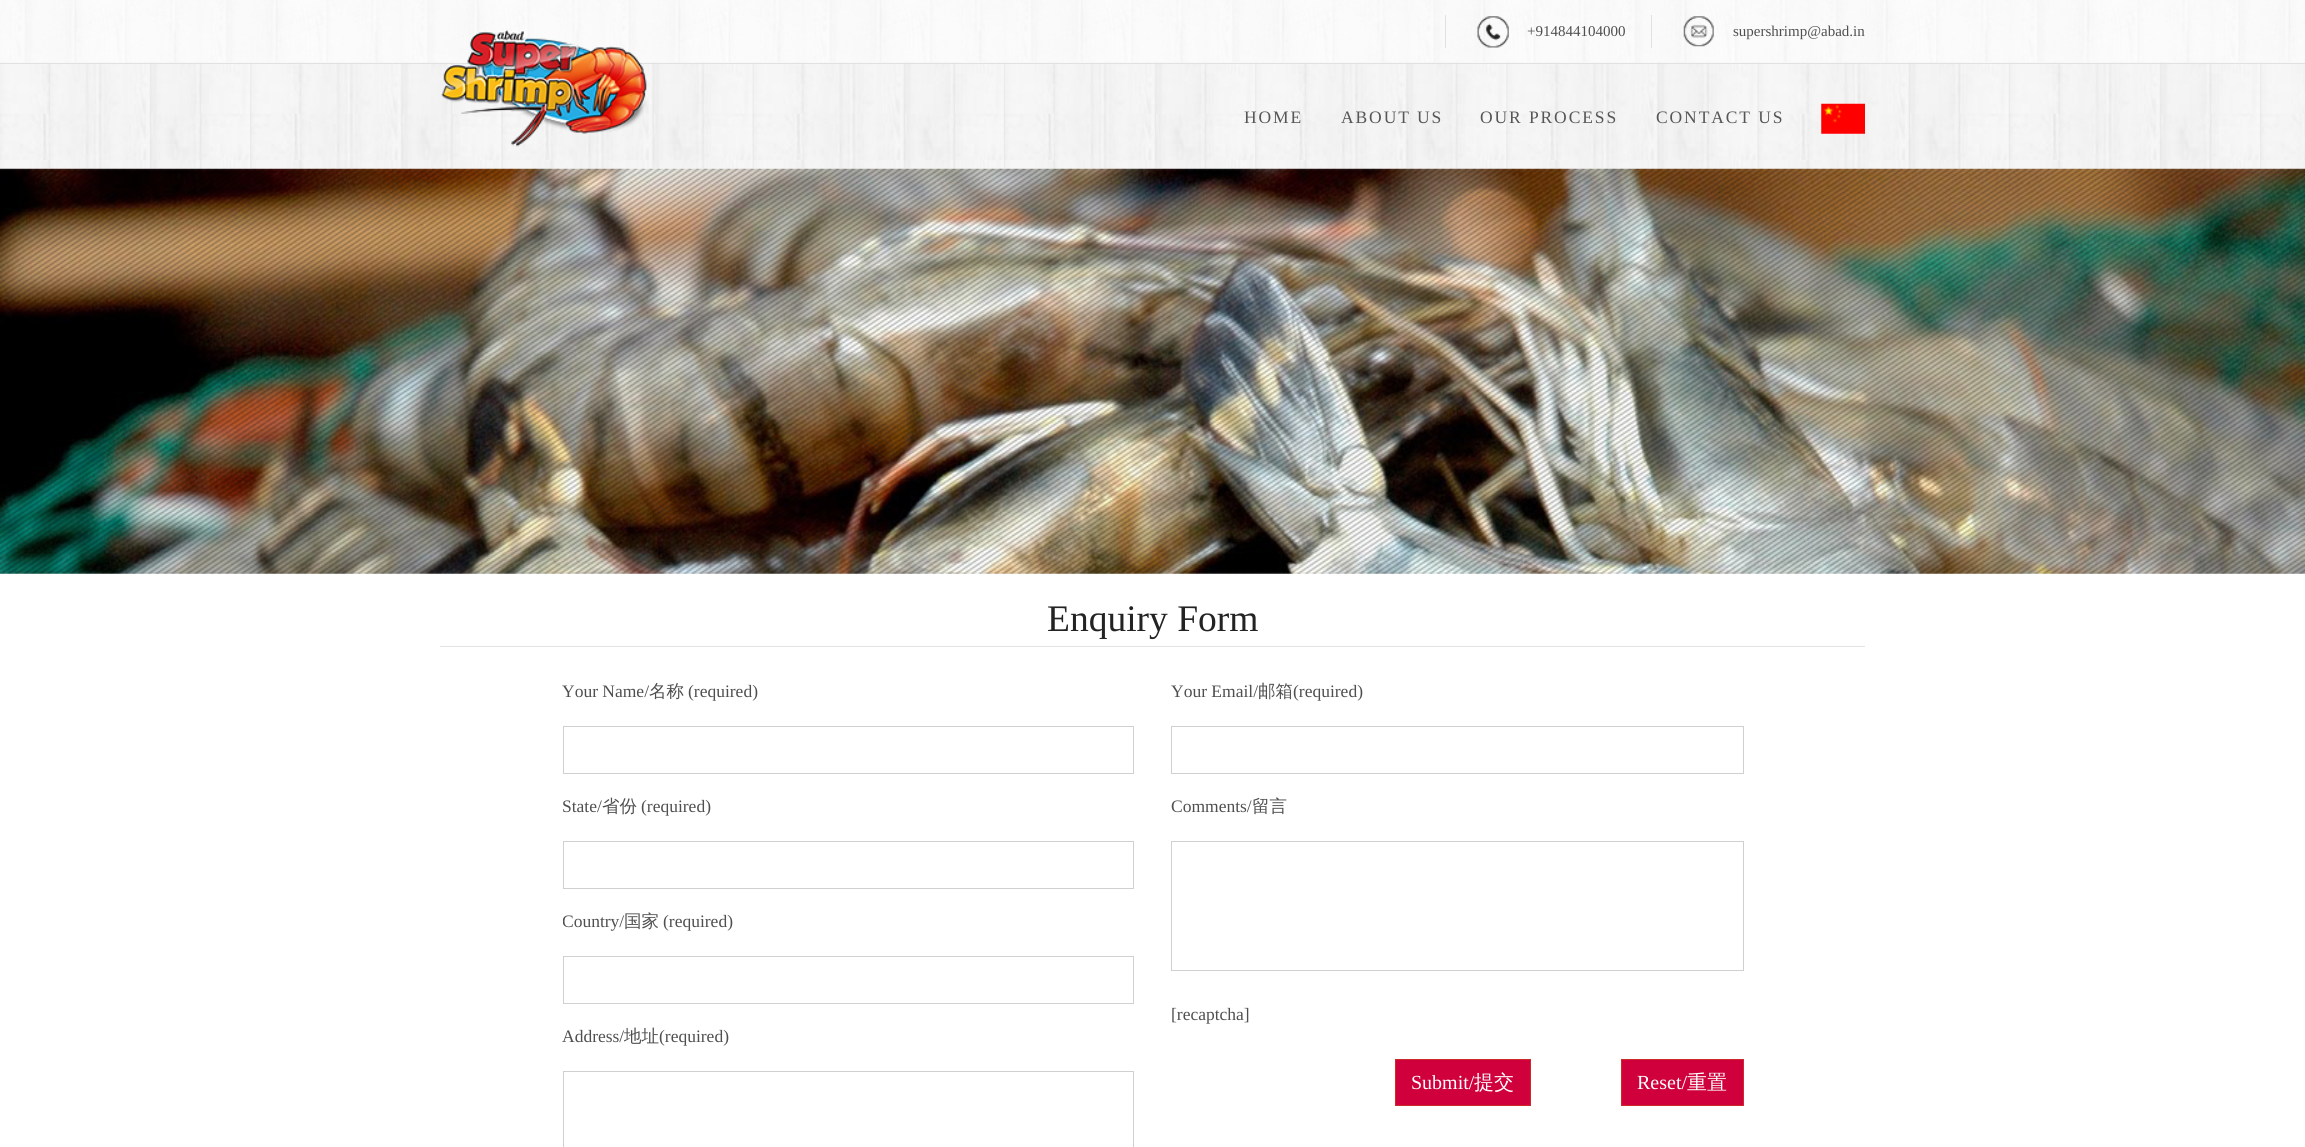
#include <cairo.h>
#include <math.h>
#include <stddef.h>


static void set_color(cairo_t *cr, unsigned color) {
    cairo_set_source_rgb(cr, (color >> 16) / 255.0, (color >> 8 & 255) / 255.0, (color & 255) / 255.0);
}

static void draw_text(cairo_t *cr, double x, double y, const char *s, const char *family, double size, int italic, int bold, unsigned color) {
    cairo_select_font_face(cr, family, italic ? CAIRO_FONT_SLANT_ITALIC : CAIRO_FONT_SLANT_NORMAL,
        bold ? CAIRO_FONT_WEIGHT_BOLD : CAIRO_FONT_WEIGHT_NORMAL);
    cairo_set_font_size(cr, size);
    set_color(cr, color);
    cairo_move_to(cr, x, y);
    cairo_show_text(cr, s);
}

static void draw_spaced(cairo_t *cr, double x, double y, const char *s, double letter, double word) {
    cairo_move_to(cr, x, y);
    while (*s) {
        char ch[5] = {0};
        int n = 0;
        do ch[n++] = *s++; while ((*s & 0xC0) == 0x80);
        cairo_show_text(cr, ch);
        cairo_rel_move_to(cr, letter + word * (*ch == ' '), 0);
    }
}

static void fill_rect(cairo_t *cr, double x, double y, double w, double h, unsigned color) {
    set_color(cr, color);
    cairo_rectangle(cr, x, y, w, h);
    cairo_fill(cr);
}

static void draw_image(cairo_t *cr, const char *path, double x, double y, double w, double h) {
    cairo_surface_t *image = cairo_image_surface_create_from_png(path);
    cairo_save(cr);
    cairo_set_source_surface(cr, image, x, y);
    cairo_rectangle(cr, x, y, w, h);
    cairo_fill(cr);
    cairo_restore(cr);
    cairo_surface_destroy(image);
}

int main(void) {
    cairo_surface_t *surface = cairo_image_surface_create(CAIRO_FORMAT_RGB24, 2305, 1147);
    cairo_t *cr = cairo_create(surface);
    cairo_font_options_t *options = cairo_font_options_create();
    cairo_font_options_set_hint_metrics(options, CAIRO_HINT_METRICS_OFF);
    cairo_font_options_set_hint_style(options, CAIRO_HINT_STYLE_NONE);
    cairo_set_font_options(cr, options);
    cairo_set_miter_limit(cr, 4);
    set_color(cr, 0xFFFFFF);
    cairo_paint(cr);
    draw_image(cr, "assets/img1.png", 0, 0, 2305, 63);
    draw_image(cr, "assets/img2.png", 1477, 16, 32, 32);
    fill_rect(cr, 1445, 15, 1, 33, 0xE1E1E1);
    draw_text(cr, 1527, 36, "+914844104000", "Liberation Serif", 15, 0, 0, 0x4F4F4F);
    draw_image(cr, "assets/img3.png", 1683, 16, 31, 31);
    fill_rect(cr, 1651, 15, 1, 33, 0xE1E1E1);
    draw_text(cr, 1733, 36, "supershrimp@abad.in", "Liberation Serif", 15, 0, 0, 0x4F4F4F);
    draw_image(cr, "assets/img4.png", 0, 62, 2305, 107);
    fill_rect(cr, 0, 63, 2305, 1, 0xE1E1E1);
    draw_image(cr, "assets/img5.png", 440, 30, 207, 117);
    cairo_set_font_size(cr, 17.5);
    set_color(cr, 0x565656);
    draw_spaced(cr, 1244, 123, "HOME", 1.9, 0);
    draw_spaced(cr, 1341, 123, "ABOUT US", 1.9, 0);
    draw_spaced(cr, 1480, 123, "OUR PROCESS", 1.9, 0);
    draw_spaced(cr, 1656, 123, "CONTACT US", 1.9, 0);
    draw_image(cr, "assets/img6.png", 1821, 103, 44, 31);
    draw_image(cr, "assets/img7.png", 0, 168, 2305, 406);
    fill_rect(cr, 440, 646, 1425, 1, 0xE4E4E4);
    draw_text(cr, 1047, 631, "Enquiry Form", "Liberation Serif", 37.5, 0, 0, 0x232323);
    draw_text(cr, 562, 697, "Your Name/", "Liberation Serif", 17.5, 0, 0, 0x4F4F4F);
    draw_text(cr, 649, 697, "名称", "WenQuanYi Zen Hei Medium", 17.5, 0, 0, 0x4F4F4F);
    draw_text(cr, 688, 697, "(required)", "Liberation Serif", 17.5, 0, 0, 0x4F4F4F);
    cairo_rectangle(cr, 563.5, 726.5, 570, 47);
    set_color(cr, 0xD0D0D0);
    cairo_set_line_width(cr, 1);
    cairo_stroke(cr);
    draw_text(cr, 562, 812, "State/", "Liberation Serif", 17.5, 0, 0, 0x4F4F4F);
    draw_text(cr, 602, 812, "省份", "WenQuanYi Zen Hei Medium", 17.5, 0, 0, 0x4F4F4F);
    draw_text(cr, 641, 812, "(required)", "Liberation Serif", 17.5, 0, 0, 0x4F4F4F);
    cairo_rectangle(cr, 563.5, 841.5, 570, 47);
    set_color(cr, 0xD0D0D0);
    cairo_stroke(cr);
    cairo_save(cr);
    cairo_rectangle(cr, 563, 678, 1181, 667);
    cairo_clip(cr);
    draw_text(cr, 562, 927, "Country/", "Liberation Serif", 17.5, 0, 0, 0x4F4F4F);
    cairo_restore(cr);
    draw_text(cr, 624, 927, "国家", "WenQuanYi Zen Hei Medium", 17.5, 0, 0, 0x4F4F4F);
    draw_text(cr, 663, 927, "(required)", "Liberation Serif", 17.5, 0, 0, 0x4F4F4F);
    cairo_rectangle(cr, 563.5, 956.5, 570, 47);
    set_color(cr, 0xD0D0D0);
    cairo_stroke(cr);
    draw_text(cr, 562, 1042, "Address/", "Liberation Serif", 17.5, 0, 0, 0x4F4F4F);
    draw_text(cr, 624, 1042, "地址", "WenQuanYi Zen Hei Medium", 17.5, 0, 0, 0x4F4F4F);
    draw_text(cr, 659, 1042, "(required)", "Liberation Serif", 17.5, 0, 0, 0x4F4F4F);
    cairo_rectangle(cr, 563.5, 1071.5, 570, 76);
    set_color(cr, 0xD0D0D0);
    cairo_stroke(cr);
    draw_text(cr, 1171, 697, "Your Email/", "Liberation Serif", 17.5, 0, 0, 0x4F4F4F);
    draw_text(cr, 1258, 697, "邮箱", "WenQuanYi Zen Hei Medium", 17.5, 0, 0, 0x4F4F4F);
    draw_text(cr, 1293, 697, "(required)", "Liberation Serif", 17.5, 0, 0, 0x4F4F4F);
    cairo_rectangle(cr, 1171.5, 726.5, 572, 47);
    set_color(cr, 0xD0D0D0);
    cairo_stroke(cr);
    draw_text(cr, 1171, 812, "Comments/", "Liberation Serif", 17.5, 0, 0, 0x4F4F4F);
    draw_text(cr, 1252, 812, "留言", "WenQuanYi Zen Hei Medium", 17.5, 0, 0, 0x4F4F4F);
    cairo_rectangle(cr, 1171.5, 841.5, 572, 129);
    set_color(cr, 0xD0D0D0);
    cairo_stroke(cr);
    draw_text(cr, 1171, 1020, "[recaptcha]", "Liberation Serif", 17.5, 0, 0, 0x4F4F4F);
    set_color(cr, 0xCF003B);
    cairo_rectangle(cr, 1395.5, 1059.5, 135, 46);
    cairo_fill_preserve(cr);
    set_color(cr, 0xCC292A);
    cairo_stroke(cr);
    draw_text(cr, 1411, 1089, "Submit/", "Liberation Serif", 20, 0, 0, 0xFFFFFF);
    draw_text(cr, 1474, 1089, "提交", "WenQuanYi Zen Hei Medium", 20, 0, 0, 0xFFFFFF);
    set_color(cr, 0xCF003B);
    cairo_rectangle(cr, 1621.5, 1059.5, 122, 46);
    cairo_fill_preserve(cr);
    set_color(cr, 0xCC292A);
    cairo_stroke(cr);
    draw_text(cr, 1637, 1089, "Reset/", "Liberation Serif", 20, 0, 0, 0xFFFFFF);
    draw_text(cr, 1687, 1089, "重置", "WenQuanYi Zen Hei Medium", 20, 0, 0, 0xFFFFFF);
    cairo_surface_write_to_png(surface, "output.png");
    cairo_font_options_destroy(options);
    cairo_destroy(cr);
    cairo_surface_destroy(surface);
    return 0;
}
